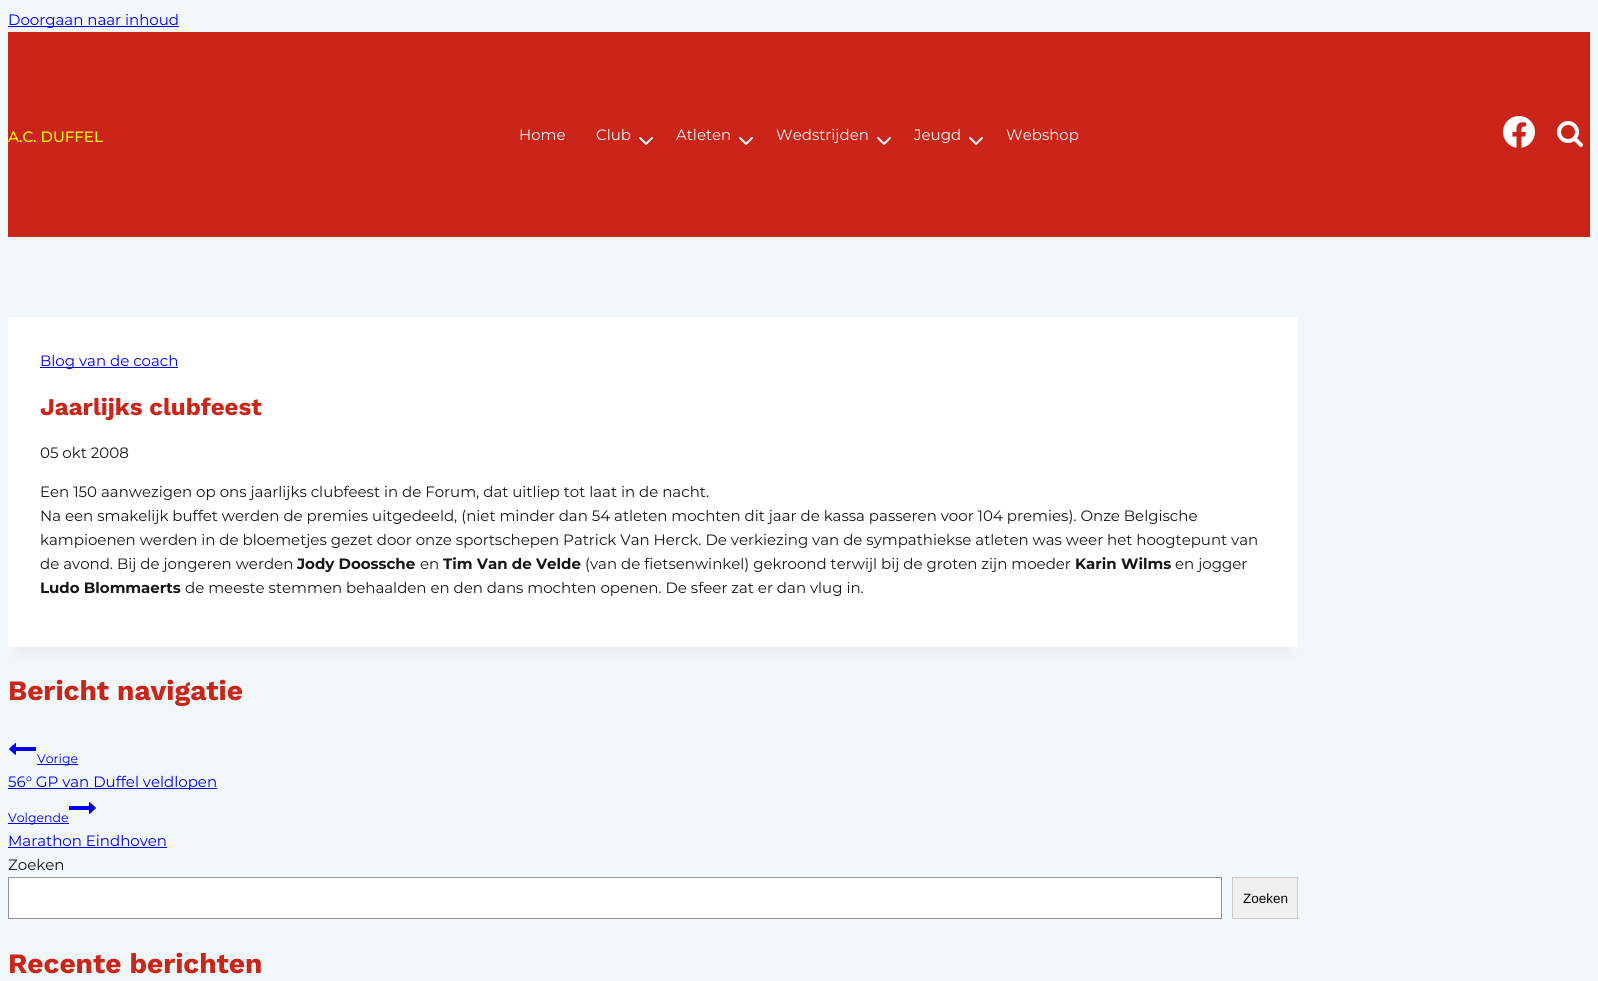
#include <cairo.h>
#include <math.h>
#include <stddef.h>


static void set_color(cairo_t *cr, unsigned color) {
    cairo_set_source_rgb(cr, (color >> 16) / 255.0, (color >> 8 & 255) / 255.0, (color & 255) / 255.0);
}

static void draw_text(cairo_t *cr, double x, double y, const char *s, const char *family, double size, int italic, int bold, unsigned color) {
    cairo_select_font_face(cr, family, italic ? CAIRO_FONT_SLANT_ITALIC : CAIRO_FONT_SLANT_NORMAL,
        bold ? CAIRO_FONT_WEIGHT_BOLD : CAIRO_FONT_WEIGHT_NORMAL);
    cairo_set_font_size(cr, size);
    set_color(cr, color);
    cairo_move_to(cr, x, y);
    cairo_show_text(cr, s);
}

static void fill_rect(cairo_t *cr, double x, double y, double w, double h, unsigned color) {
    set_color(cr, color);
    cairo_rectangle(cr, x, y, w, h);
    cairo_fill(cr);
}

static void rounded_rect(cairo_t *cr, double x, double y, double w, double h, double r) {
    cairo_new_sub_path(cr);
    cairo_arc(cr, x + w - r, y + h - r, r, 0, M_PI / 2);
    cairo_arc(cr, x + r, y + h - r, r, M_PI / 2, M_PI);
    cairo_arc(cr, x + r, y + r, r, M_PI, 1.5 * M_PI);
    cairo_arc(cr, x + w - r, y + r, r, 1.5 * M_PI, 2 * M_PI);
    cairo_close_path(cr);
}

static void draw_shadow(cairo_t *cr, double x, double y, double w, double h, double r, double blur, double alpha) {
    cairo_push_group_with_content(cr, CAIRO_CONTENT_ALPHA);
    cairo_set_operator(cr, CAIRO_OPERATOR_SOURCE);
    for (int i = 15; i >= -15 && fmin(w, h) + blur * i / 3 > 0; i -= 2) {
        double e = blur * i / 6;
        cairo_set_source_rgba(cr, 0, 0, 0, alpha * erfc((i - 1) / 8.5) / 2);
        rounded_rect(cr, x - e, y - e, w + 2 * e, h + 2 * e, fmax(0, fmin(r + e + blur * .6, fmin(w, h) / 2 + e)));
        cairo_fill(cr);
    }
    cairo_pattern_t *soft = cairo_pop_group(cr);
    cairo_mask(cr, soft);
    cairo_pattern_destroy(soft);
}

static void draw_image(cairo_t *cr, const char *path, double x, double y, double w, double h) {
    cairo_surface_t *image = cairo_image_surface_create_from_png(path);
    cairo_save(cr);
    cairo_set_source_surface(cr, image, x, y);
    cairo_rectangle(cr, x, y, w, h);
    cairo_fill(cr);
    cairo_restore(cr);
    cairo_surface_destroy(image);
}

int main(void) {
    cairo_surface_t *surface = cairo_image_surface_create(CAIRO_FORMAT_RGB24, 1598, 981);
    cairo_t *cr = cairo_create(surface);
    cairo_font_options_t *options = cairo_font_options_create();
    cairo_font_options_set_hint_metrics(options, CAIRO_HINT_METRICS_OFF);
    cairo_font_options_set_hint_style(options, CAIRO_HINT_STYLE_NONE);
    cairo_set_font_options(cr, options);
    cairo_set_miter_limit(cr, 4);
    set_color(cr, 0xF2F7FA);
    cairo_paint(cr);
    fill_rect(cr, 8, 26, 171, 1, 0x0000EE);
    draw_text(cr, 8, 25, "Doorgaan naar inhoud", "Montserrat", 15, 0, 0, 0x0000EE);
    fill_rect(cr, 8, 32, 1582, 205, 0xCA2518);
    draw_text(cr, 8, 142, "A.C. DUFFEL", "Montserrat Medium", 15, 0, 0, 0xF9F804);
    draw_text(cr, 519, 140, "Home", "Montserrat", 15, 0, 0, 0xF7FAFC);
    draw_text(cr, 596, 140, "Club", "Montserrat", 15, 0, 0, 0xF7FAFC);
    draw_image(cr, "assets/img1.png", 639, 137, 14, 8);
    draw_text(cr, 676, 140, "Atleten", "Montserrat", 15, 0, 0, 0xF7FAFC);
    draw_image(cr, "assets/img1.png", 739, 137, 14, 8);
    draw_text(cr, 776, 140, "Wedstrijden", "Montserrat", 15, 0, 0, 0xF7FAFC);
    draw_image(cr, "assets/img1.png", 877, 137, 14, 8);
    draw_text(cr, 914, 140, "Jeugd", "Montserrat", 15, 0, 0, 0xF7FAFC);
    draw_image(cr, "assets/img1.png", 969, 137, 14, 8);
    draw_text(cr, 1006, 140, "Webshop", "Montserrat", 15, 0, 0, 0xF7FAFC);
    draw_image(cr, "assets/img2.png", 1503, 116, 32, 32);
    draw_image(cr, "assets/img3.png", 1557, 121, 26, 26);
    set_color(cr, 0x000000);
    draw_shadow(cr, 18, 342, 1270, 310, 0, 7.5, 0.05);
    fill_rect(cr, 8, 317, 1290, 330, 0xFFFFFF);
    fill_rect(cr, 40, 367, 138, 1, 0x0000EE);
    draw_text(cr, 40, 366, "Blog van de coach", "Montserrat", 15, 0, 0, 0x0000EE);
    draw_text(cr, 40, 415, "Jaarlijks clubfeest", "Work Sans", 24, 0, 1, 0xCA2518);
    draw_text(cr, 40, 458, "05 okt 2008", "Montserrat", 15, 0, 0, 0x141714);
    draw_text(cr, 40, 497, "Een 150 aanwezigen op ons jaarlijks clubfeest in de Forum, dat uitliep tot laat in de nacht.", "Montserrat", 15, 0, 0, 0x141714);
    draw_text(cr, 40, 521, "Na een smakelijk buffet werden de premies uitgedeeld, (niet minder dan 54 atleten mochten dit jaar de kassa passeren voor 104 premies). Onze Belgische", "Montserrat", 15, 0, 0, 0x141714);
    draw_text(cr, 40, 545, "kampioenen werden in de bloemetjes gezet door onze sportschepen Patrick Van Herck. De verkiezing van de sympathiekse atleten was weer het hoogtepunt van", "Montserrat", 15, 0, 0, 0x141714);
    draw_text(cr, 40, 569, "de avond. Bij de jongeren werden", "Montserrat", 15, 0, 0, 0x141714);
    draw_text(cr, 297, 569, "Jody Doossche", "Montserrat", 15, 0, 1, 0x141714);
    draw_text(cr, 420, 569, "en", "Montserrat", 15, 0, 0, 0x141714);
    draw_text(cr, 443, 569, "Tim Van de Velde", "Montserrat", 15, 0, 1, 0x141714);
    draw_text(cr, 585, 569, "(van de fietsenwinkel) gekroond terwijl bij de groten zijn moeder", "Montserrat", 15, 0, 0, 0x141714);
    draw_text(cr, 1075, 569, "Karin Wilms", "Montserrat", 15, 0, 1, 0x141714);
    draw_text(cr, 1175, 569, "en jogger", "Montserrat", 15, 0, 0, 0x141714);
    draw_text(cr, 40, 593, "Ludo Blommaerts", "Montserrat", 15, 0, 1, 0x141714);
    draw_text(cr, 185, 593, "de meeste stemmen behaalden en den dans mochten openen. De sfeer zat er dan vlug in.", "Montserrat", 15, 0, 0, 0x141714);
    draw_text(cr, 8, 700, "Bericht navigatie", "Work Sans", 28, 0, 1, 0xCA2518);
    draw_image(cr, "assets/img4.png", 9, 743, 27, 12);
    fill_rect(cr, 37, 764, 41, 1, 0x0000EE);
    draw_text(cr, 37, 763, "Vorige", "Montserrat", 12.5, 0, 0, 0x0000EE);
    fill_rect(cr, 8, 788, 209, 1, 0x0000EE);
    draw_text(cr, 8, 787, "56° GP van Duffel veldlopen", "Montserrat", 15, 0, 0, 0x0000EE);
    draw_image(cr, "assets/img5.png", 69, 802, 27, 12);
    fill_rect(cr, 8, 823, 61, 1, 0x0000EE);
    draw_text(cr, 8, 822, "Volgende", "Montserrat", 12.5, 0, 0, 0x0000EE);
    draw_text(cr, 8, 846, "Marathon Eindhoven", "Montserrat", 15, 0, 0, 0x0000EE);
    fill_rect(cr, 8, 847, 159, 1, 0x0000EE);
    draw_text(cr, 8, 870, "Zoeken", "Montserrat", 15, 0, 0, 0x141714);
    set_color(cr, 0xFFFFFF);
    cairo_rectangle(cr, 8.5, 877.5, 1213, 41);
    cairo_fill_preserve(cr);
    set_color(cr, 0x949494);
    cairo_set_line_width(cr, 1);
    cairo_stroke(cr);
    set_color(cr, 0xEFEFEF);
    cairo_rectangle(cr, 1232.5, 877.5, 65, 41);
    cairo_fill_preserve(cr);
    set_color(cr, 0xCCCCCC);
    cairo_stroke(cr);
    draw_text(cr, 1243, 903, "Zoeken", "Liberation Sans", 13.5, 0, 0, 0x000000);
    draw_text(cr, 8, 973, "Recente berichten", "Work Sans", 28, 0, 1, 0xCA2518);
    cairo_surface_write_to_png(surface, "output.png");
    cairo_font_options_destroy(options);
    cairo_destroy(cr);
    cairo_surface_destroy(surface);
    return 0;
}
